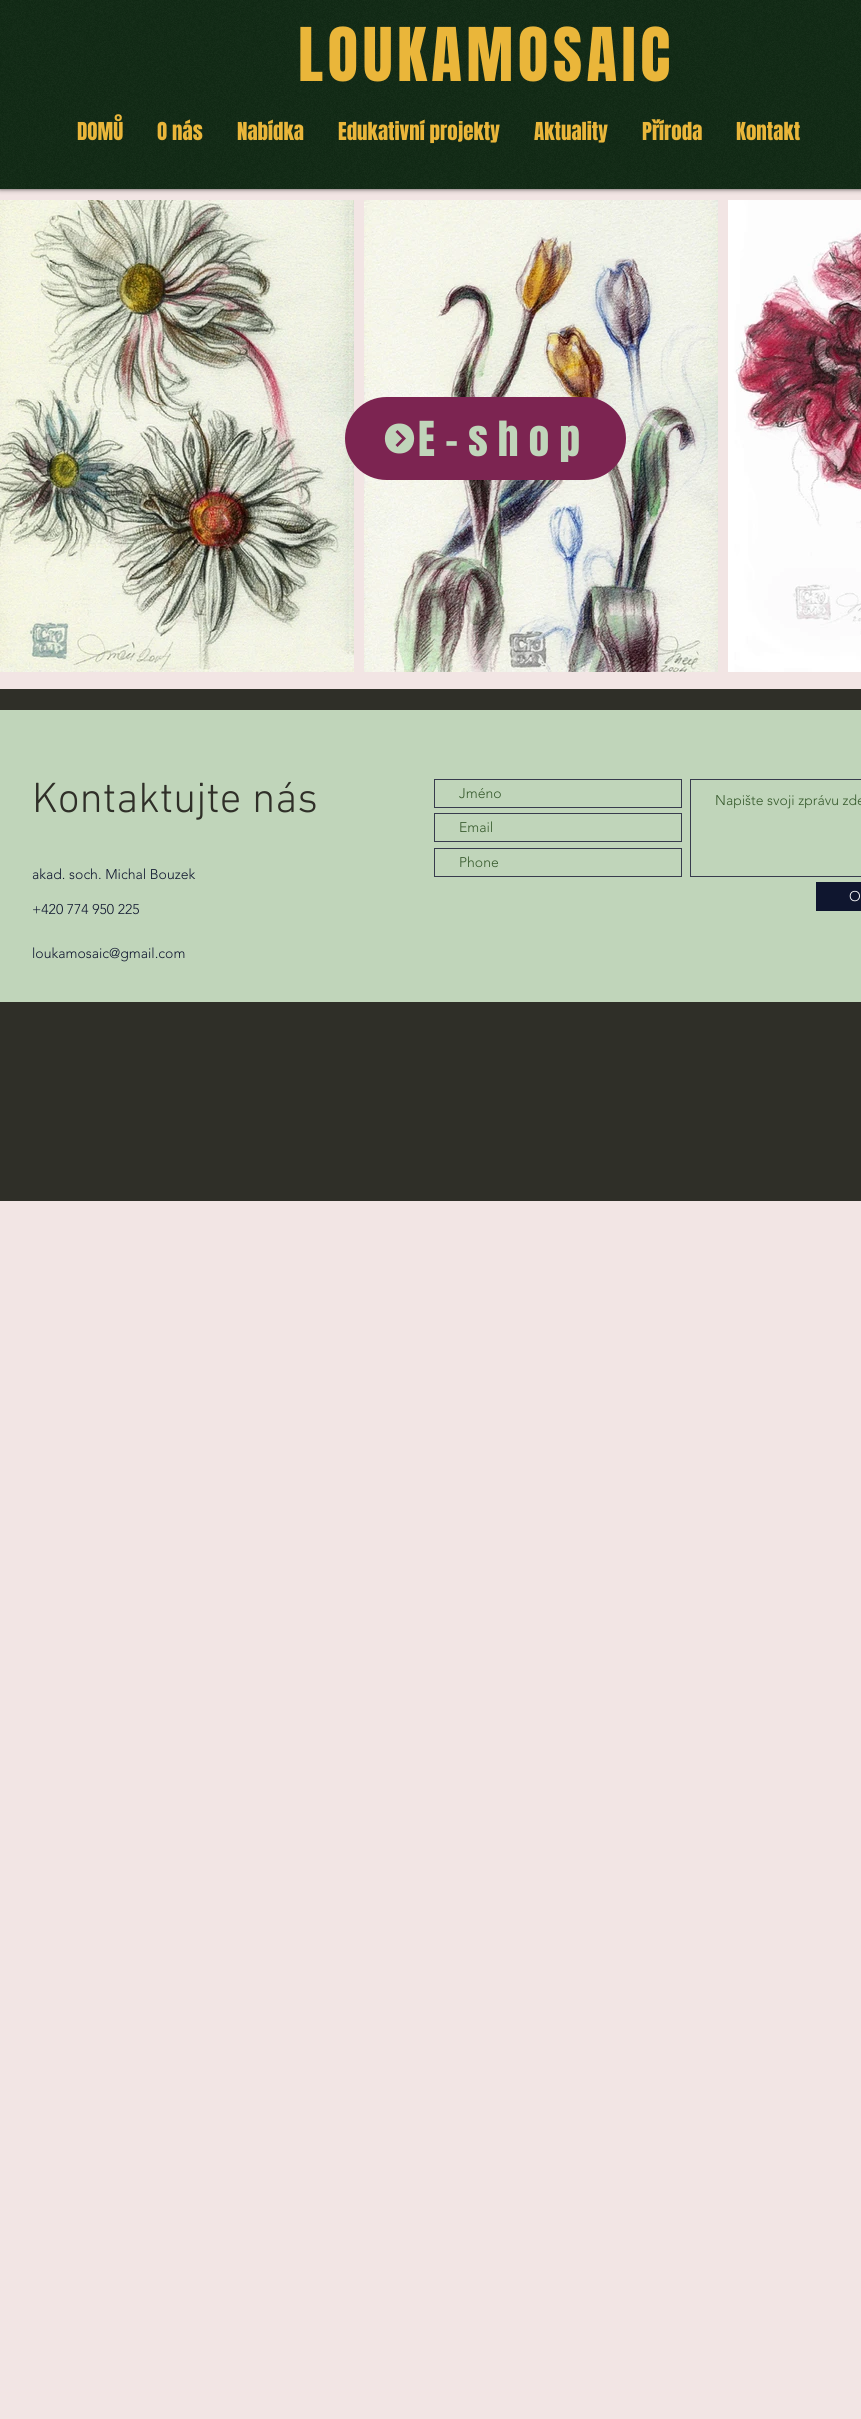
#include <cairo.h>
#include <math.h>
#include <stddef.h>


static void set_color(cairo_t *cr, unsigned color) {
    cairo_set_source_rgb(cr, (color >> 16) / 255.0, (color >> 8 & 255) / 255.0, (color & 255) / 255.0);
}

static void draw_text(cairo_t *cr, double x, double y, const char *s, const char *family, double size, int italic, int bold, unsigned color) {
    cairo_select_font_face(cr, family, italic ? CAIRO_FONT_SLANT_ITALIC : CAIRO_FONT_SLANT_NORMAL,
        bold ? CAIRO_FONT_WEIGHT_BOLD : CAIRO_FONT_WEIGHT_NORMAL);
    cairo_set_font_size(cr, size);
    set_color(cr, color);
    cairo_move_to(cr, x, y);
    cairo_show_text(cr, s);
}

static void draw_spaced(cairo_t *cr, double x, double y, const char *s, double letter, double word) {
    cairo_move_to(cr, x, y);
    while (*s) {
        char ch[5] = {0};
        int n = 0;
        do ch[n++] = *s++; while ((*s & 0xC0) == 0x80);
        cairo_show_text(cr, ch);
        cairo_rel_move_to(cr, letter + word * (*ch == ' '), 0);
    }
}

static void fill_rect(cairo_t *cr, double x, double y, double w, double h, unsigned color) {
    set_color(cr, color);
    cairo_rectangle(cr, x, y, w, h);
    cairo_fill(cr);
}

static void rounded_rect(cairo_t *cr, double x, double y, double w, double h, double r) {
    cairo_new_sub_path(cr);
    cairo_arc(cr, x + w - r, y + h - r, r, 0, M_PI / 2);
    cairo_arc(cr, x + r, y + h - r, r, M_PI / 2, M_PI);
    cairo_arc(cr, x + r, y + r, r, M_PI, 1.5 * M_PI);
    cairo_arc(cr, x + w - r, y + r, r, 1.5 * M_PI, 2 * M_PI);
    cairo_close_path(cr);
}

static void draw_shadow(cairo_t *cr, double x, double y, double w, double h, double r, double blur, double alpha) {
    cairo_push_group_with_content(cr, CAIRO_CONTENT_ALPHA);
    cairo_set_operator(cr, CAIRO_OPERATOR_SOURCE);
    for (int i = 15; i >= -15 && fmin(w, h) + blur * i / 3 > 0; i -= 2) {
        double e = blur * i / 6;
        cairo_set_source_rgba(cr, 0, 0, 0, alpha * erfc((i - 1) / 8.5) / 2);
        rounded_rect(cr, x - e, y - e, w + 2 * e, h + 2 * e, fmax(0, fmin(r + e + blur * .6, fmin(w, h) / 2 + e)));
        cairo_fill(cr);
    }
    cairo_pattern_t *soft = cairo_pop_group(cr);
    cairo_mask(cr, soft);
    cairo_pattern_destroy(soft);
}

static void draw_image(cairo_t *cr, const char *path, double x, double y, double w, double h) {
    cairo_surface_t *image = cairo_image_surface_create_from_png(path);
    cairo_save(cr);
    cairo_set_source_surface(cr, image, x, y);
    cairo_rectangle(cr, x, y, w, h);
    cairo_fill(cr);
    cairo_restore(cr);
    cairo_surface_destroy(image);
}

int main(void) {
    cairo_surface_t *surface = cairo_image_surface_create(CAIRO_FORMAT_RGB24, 861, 2419);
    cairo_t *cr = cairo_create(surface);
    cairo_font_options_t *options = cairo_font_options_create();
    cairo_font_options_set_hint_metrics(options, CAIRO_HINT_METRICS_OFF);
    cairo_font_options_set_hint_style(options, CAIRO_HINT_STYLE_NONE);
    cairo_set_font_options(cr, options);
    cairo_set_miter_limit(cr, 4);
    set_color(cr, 0xF2E5E4);
    cairo_paint(cr);
    set_color(cr, 0x000000);
    draw_shadow(cr, 0, 0, 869, 189, 0, 2.5, 0.7);
    fill_rect(cr, 0, 0, 861, 189, 0x112A15);
    draw_image(cr, "assets/img1.png", 0, 0, 861, 189);
    cairo_select_font_face(cr, "Anton", CAIRO_FONT_SLANT_NORMAL, CAIRO_FONT_WEIGHT_NORMAL);
    cairo_set_font_size(cr, 63);
    set_color(cr, 0xEAB63A);
    draw_spaced(cr, 298, 81, "LOUKAMOSAIC", 4.5, 0);
    draw_text(cr, 77, 140, "DOMŮ", "Anton", 21, 0, 0, 0xEAB63A);
    draw_text(cr, 157, 140, "O nás", "Anton", 21, 0, 0, 0xEAB63A);
    draw_text(cr, 237, 140, "Nabídka", "Anton", 21, 0, 0, 0xEAB63A);
    draw_text(cr, 338, 140, "Edukativní projekty", "Anton", 21, 0, 0, 0xEAB63A);
    draw_text(cr, 534, 140, "Aktuality", "Anton", 21, 0, 0, 0xEAB63A);
    draw_text(cr, 642, 140, "Příroda", "Anton", 21, 0, 0, 0xEAB63A);
    draw_text(cr, 736, 140, "Kontakt", "Anton", 21, 0, 0, 0xEAB63A);
    draw_image(cr, "assets/img2.png", 0, 200, 354, 472);
    draw_image(cr, "assets/img3.png", 364, 200, 354, 472);
    draw_image(cr, "assets/img4.png", 728, 200, 133, 472);
    set_color(cr, 0x7C2451);
    rounded_rect(cr, 345, 397, 281, 83, 41.5);
    cairo_fill(cr);
    set_color(cr, 0xC0D5BA);
    cairo_new_path(cr);
    cairo_move_to(cr, 399.5, 423.5);
    cairo_curve_to(cr, 380, 423.5, 380, 453.5, 399.5, 453.5);
    cairo_curve_to(cr, 419, 453.5, 419, 423.5, 399.5, 423.5);
    cairo_close_path(cr);
    cairo_move_to(cr, 397.5, 447);
    cairo_line_to(cr, 395.5, 445);
    cairo_line_to(cr, 402, 438.5);
    cairo_line_to(cr, 395.5, 432);
    cairo_line_to(cr, 397.5, 430);
    cairo_line_to(cr, 406, 438.5);
    cairo_close_path(cr);
    cairo_fill(cr);
    cairo_set_font_size(cr, 41);
    draw_spaced(cr, 418, 456, "E-shop", 10.25, 0);
    fill_rect(cr, 0, 689, 861, 512, 0x2F2F28);
    fill_rect(cr, 0, 710, 861, 292, 0xC0D5BA);
    draw_text(cr, 32, 812, "Kontaktujte nás", "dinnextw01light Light", 43, 0, 0, 0x2F2F28);
    cairo_rectangle(cr, 434.5, 779.5, 247, 28);
    set_color(cr, 0x373B4D);
    cairo_set_line_width(cr, 1);
    cairo_stroke(cr);
    draw_text(cr, 459, 798, "Jméno", "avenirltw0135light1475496 Light", 14, 0, 0, 0x35592B);
    cairo_rectangle(cr, 690.5, 779.5, 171, 97);
    set_color(cr, 0x373B4D);
    cairo_stroke(cr);
    draw_text(cr, 715, 805, "Napište svoji zprávu zde", "avenirltw0135light1475496 Light", 14, 0, 0, 0x35592B);
    cairo_rectangle(cr, 434.5, 813.5, 247, 28);
    set_color(cr, 0x373B4D);
    cairo_stroke(cr);
    draw_text(cr, 459, 832, "Email", "avenirltw0135light1475496 Light", 14, 0, 0, 0x35592B);
    cairo_rectangle(cr, 434.5, 848.5, 247, 28);
    set_color(cr, 0x373B4D);
    cairo_stroke(cr);
    draw_text(cr, 459, 867, "Phone", "avenirltw0135light1475496 Light", 14, 0, 0, 0x35592B);
    fill_rect(cr, 816, 882, 45, 29, 0x0F162F);
    draw_text(cr, 849, 901, "O", "avenirltw0135light1475496 Light", 14, 0, 0, 0xFFFFFF);
    draw_text(cr, 32, 879, "akad. soch. Michal Bouzek", "avenirltw0135light1475496 Light", 14, 0, 0, 0x0F162F);
    draw_text(cr, 32, 914, "+420 774 950 225", "avenirltw0135light1475496 Light", 14, 0, 0, 0x0F162F);
    draw_text(cr, 32, 958, "loukamosaic@gmail.com", "avenirltw0135light1475496 Light", 14, 0, 0, 0x0F162F);
    cairo_surface_write_to_png(surface, "output.png");
    cairo_font_options_destroy(options);
    cairo_destroy(cr);
    cairo_surface_destroy(surface);
    return 0;
}
